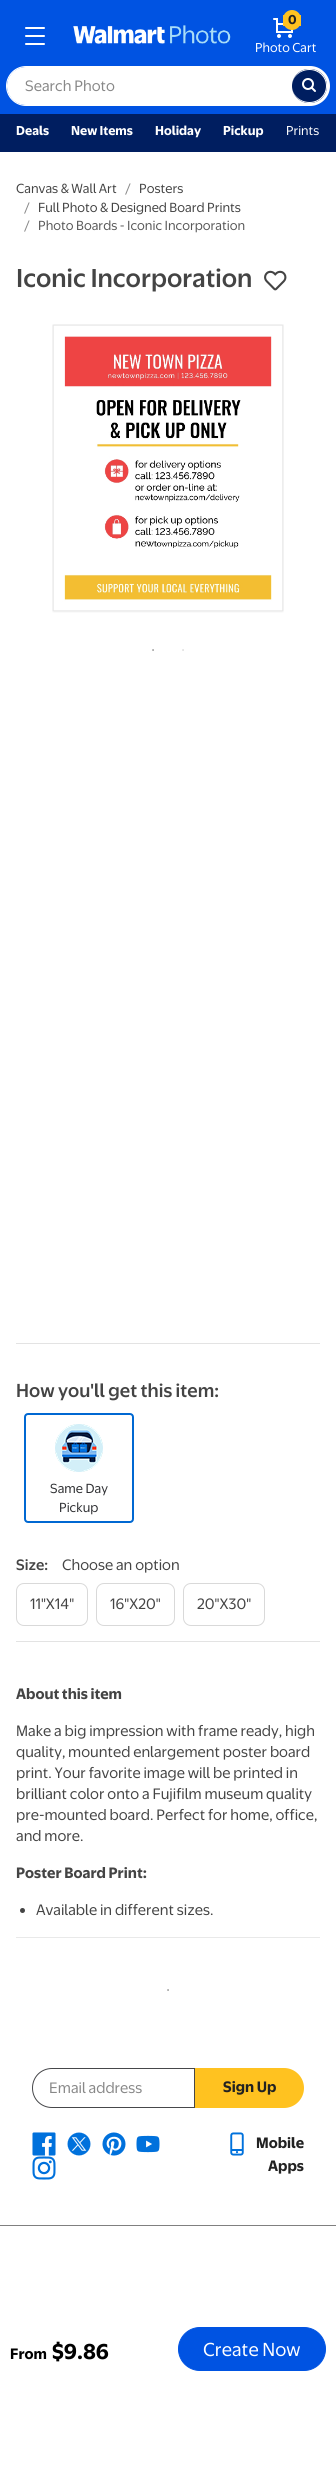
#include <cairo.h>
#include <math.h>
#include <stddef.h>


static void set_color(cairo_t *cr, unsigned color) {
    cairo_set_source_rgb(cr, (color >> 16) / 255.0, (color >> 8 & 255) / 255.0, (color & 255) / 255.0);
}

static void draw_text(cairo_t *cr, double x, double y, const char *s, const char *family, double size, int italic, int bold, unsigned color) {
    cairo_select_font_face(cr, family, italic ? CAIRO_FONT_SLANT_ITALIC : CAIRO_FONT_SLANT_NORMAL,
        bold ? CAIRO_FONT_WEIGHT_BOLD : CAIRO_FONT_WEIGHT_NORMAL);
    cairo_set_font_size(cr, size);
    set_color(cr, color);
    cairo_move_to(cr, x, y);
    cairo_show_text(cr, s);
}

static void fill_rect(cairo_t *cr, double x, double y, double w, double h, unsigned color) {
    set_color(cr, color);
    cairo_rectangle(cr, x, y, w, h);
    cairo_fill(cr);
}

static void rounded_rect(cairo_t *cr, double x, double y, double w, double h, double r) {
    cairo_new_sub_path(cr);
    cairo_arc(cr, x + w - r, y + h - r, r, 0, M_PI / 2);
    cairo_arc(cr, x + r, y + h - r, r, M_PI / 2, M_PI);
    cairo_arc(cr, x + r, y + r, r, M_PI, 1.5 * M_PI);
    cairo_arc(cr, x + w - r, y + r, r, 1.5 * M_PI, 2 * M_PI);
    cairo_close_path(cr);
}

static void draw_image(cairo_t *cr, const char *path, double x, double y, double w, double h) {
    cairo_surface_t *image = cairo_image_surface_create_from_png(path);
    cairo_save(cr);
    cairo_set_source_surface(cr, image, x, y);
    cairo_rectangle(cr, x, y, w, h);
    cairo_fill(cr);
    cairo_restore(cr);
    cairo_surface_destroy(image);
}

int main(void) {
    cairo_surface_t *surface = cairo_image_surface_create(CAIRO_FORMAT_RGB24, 336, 2472);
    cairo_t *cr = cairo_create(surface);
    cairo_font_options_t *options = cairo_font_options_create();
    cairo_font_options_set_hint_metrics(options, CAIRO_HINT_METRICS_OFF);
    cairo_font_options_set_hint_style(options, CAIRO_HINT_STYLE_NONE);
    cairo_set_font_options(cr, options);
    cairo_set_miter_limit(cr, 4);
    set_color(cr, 0xFFFFFF);
    cairo_paint(cr);
    fill_rect(cr, 0, 0, 336, 114, 0x0053E2);
    draw_image(cr, "assets/img1.png", 25, 27, 20, 18);
    draw_image(cr, "assets/img2.png", 73, 25, 158, 19);
    draw_image(cr, "assets/img3.png", 273, 18, 20, 20);
    set_color(cr, 0xFFC220);
    rounded_rect(cr, 283, 10, 18, 20, 9);
    cairo_fill(cr);
    fill_rect(cr, 299, 15, 2, 11, 0xFFC220);
    fill_rect(cr, 283, 15, 2, 11, 0xFFC220);
    draw_text(cr, 288, 24, "0", "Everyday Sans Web", 12, 0, 1, 0x222222);
    draw_text(cr, 255, 52, "Photo Cart", "Everyday Sans Web", 12, 0, 0, 0xFFFFFF);
    cairo_new_path(cr);
    cairo_move_to(cr, 26, 67);
    cairo_line_to(cr, 292, 67);
    cairo_line_to(cr, 292, 105);
    cairo_line_to(cr, 26, 105);
    cairo_curve_to(cr, 15.5, 105, 7, 96.5, 7, 86);
    cairo_curve_to(cr, 7, 75.5, 15.5, 67, 26, 67);
    cairo_close_path(cr);
    cairo_fill(cr);
    cairo_set_fill_rule(cr, CAIRO_FILL_RULE_EVEN_ODD);
    cairo_new_path(cr);
    cairo_move_to(cr, 26, 66);
    cairo_line_to(cr, 292, 66);
    cairo_line_to(cr, 292, 106);
    cairo_line_to(cr, 26, 106);
    cairo_curve_to(cr, 15, 106, 6, 97, 6, 86);
    cairo_curve_to(cr, 6, 75, 15, 66, 26, 66);
    cairo_close_path(cr);
    cairo_move_to(cr, 26, 67);
    cairo_line_to(cr, 292, 67);
    cairo_line_to(cr, 292, 105);
    cairo_line_to(cr, 26, 105);
    cairo_curve_to(cr, 16, 105, 7, 96, 7, 86);
    cairo_curve_to(cr, 7, 76, 16, 67, 26, 67);
    cairo_close_path(cr);
    cairo_fill(cr);
    draw_text(cr, 25, 91, "Search Photo", "Everyday Sans Web", 14, 0, 0, 0x888888);
    set_color(cr, 0xFFFFFF);
    cairo_new_path(cr);
    cairo_move_to(cr, 292, 66);
    cairo_line_to(cr, 310, 66);
    cairo_curve_to(cr, 321, 66, 330, 75, 330, 86);
    cairo_curve_to(cr, 330, 97, 321, 106, 310, 106);
    cairo_line_to(cr, 292, 106);
    cairo_close_path(cr);
    cairo_fill(cr);
    set_color(cr, 0x001E60);
    rounded_rect(cr, 292, 69, 35, 34, 17);
    cairo_fill(cr);
    set_color(cr, 0xFFFFFF);
    cairo_new_path(cr);
    cairo_move_to(cr, 309.5, 69);
    cairo_curve_to(cr, 319, 69, 327, 76.5, 327, 86);
    cairo_curve_to(cr, 327, 95.5, 319, 103, 309.5, 103);
    cairo_curve_to(cr, 300, 103, 292, 95.5, 292, 86);
    cairo_curve_to(cr, 292, 76.5, 300, 69, 309.5, 69);
    cairo_close_path(cr);
    cairo_move_to(cr, 309.5, 70);
    cairo_curve_to(cr, 318.5, 70, 326, 77, 326, 86);
    cairo_curve_to(cr, 326, 95, 318.5, 102, 309.5, 102);
    cairo_curve_to(cr, 300, 102, 292, 95, 292, 86);
    cairo_curve_to(cr, 292, 77, 300, 70, 309.5, 70);
    cairo_close_path(cr);
    cairo_fill(cr);
    draw_image(cr, "assets/img4.png", 302, 78, 14, 14);
    fill_rect(cr, 0, 114, 336, 38, 0x001E60);
    draw_text(cr, 16, 135, "Deals", "Everyday Sans Web", 12, 0, 1, 0xFFFFFF);
    draw_text(cr, 71, 135, "New Items", "Everyday Sans Web", 12, 0, 1, 0xFFFFFF);
    draw_text(cr, 155, 135, "Holiday", "Everyday Sans Web", 12, 0, 1, 0xFFFFFF);
    draw_text(cr, 223, 135, "Pickup", "Everyday Sans Web", 12, 0, 1, 0xFFFFFF);
    draw_text(cr, 286, 135, "Prints", "Everyday Sans Web", 12, 0, 0, 0xFFFFFF);
    draw_text(cr, 16, 193, "Canvas & Wall Art", "Everyday Sans Web", 12.25, 0, 0, 0x444444);
    draw_text(cr, 125, 193, "/", "Everyday Sans Web", 12.25, 0, 0, 0x888888);
    draw_text(cr, 139, 193, "Posters", "Everyday Sans Web", 12.25, 0, 0, 0x444444);
    draw_text(cr, 24, 212, "/", "Everyday Sans Web", 12.25, 0, 0, 0x888888);
    draw_text(cr, 38, 212, "Full Photo & Designed Board Prints", "Everyday Sans Web", 12.25, 0, 0, 0x444444);
    draw_text(cr, 24, 230, "/", "Everyday Sans Web", 12.25, 0, 0, 0x888888);
    draw_text(cr, 38, 230, "Photo Boards - Iconic Incorporation", "Everyday Sans Web", 12.25, 0, 0, 0x595959);
    draw_text(cr, 16, 287, "Iconic Incorporation", "Everyday Sans Web Medium", 24, 0, 0, 0x444444);
    draw_image(cr, "assets/img5.png", 264, 270, 23, 21);
    draw_image(cr, "assets/img6.png", 52, 324, 232, 289);
    draw_text(cr, 152, 652, "•", "Liberation Serif", 6, 0, 0, 0x444444);
    draw_text(cr, 182, 652, "•", "Liberation Serif", 6, 0, 0, 0xBFBFBF);
    fill_rect(cr, 16, 1343, 304, 1, 0xE3E3E3);
    fill_rect(cr, 16, 1641, 304, 1, 0xE3E3E3);
    draw_text(cr, 16, 1397, "How you'll get this item:", "Everyday Sans Web Medium", 17.5, 0, 0, 0x444444);
    rounded_rect(cr, 25, 1414, 108, 108, 3);
    set_color(cr, 0x0068D2);
    cairo_stroke(cr);
    set_color(cr, 0xE9F8FC);
    cairo_arc(cr, 79, 1448, 24, 0, 2 * M_PI);
    cairo_fill(cr);
    draw_image(cr, "assets/img7.png", 55, 1424, 48, 48);
    draw_text(cr, 50, 1493, "Same Day", "Everyday Sans Web", 12.25, 0, 0, 0x2E2F32);
    draw_text(cr, 59, 1512, "Pickup", "Everyday Sans Web", 12.25, 0, 0, 0x2E2F32);
    draw_text(cr, 16, 1570, "Size:", "Everyday Sans Web Medium", 14, 0, 0, 0x444444);
    draw_text(cr, 62, 1570, "Choose an option", "Everyday Sans Web", 14, 0, 0, 0x444444);
    rounded_rect(cr, 16.5, 1583.5, 71, 42, 7.5);
    set_color(cr, 0xD9D9D9);
    cairo_set_line_width(cr, 1);
    cairo_stroke(cr);
    draw_text(cr, 30, 1609, "11\"X14\"", "Everyday Sans Web", 14, 0, 0, 0x444444);
    rounded_rect(cr, 96.5, 1583.5, 78, 42, 7.5);
    set_color(cr, 0xD9D9D9);
    cairo_stroke(cr);
    draw_text(cr, 110, 1609, "16\"X20\"", "Everyday Sans Web", 14, 0, 0, 0x444444);
    rounded_rect(cr, 183.5, 1583.5, 81, 42, 7.5);
    set_color(cr, 0xD9D9D9);
    cairo_stroke(cr);
    draw_text(cr, 197, 1609, "20\"X30\"", "Everyday Sans Web", 14, 0, 0, 0x444444);
    fill_rect(cr, 0, 2225, 336, 1, 0x808080);
    draw_text(cr, 10, 2359, "From", "Everyday Sans Web", 14, 0, 1, 0x000000);
    draw_text(cr, 52, 2359, "$9.86", "Everyday Sans Web", 20, 0, 1, 0x000000);
    set_color(cr, 0x0053E2);
    rounded_rect(cr, 178.5, 2327.5, 147, 43, 21.5);
    cairo_fill_preserve(cr);
    cairo_stroke(cr);
    draw_text(cr, 203, 2356, "Create Now", "Everyday Sans Web", 17.5, 0, 0, 0xFFFFFF);
    draw_text(cr, 16, 1699, "About this item", "Everyday Sans Web", 14, 0, 1, 0x444444);
    draw_text(cr, 16, 1736, "Make a big impression with frame ready, high", "Everyday Sans Web", 14, 0, 0, 0x444444);
    draw_text(cr, 16, 1757, "quality, mounted enlargement poster board", "Everyday Sans Web", 14, 0, 0, 0x444444);
    draw_text(cr, 16, 1778, "print. Your favorite image will be printed in", "Everyday Sans Web", 14, 0, 0, 0x444444);
    draw_text(cr, 16, 1799, "brilliant color onto a Fujifilm museum quality", "Everyday Sans Web", 14, 0, 0, 0x444444);
    draw_text(cr, 16, 1820, "pre-mounted board. Perfect for home, office,", "Everyday Sans Web", 14, 0, 0, 0x444444);
    draw_text(cr, 16, 1841, "and more.", "Everyday Sans Web", 14, 0, 0, 0x444444);
    draw_text(cr, 16, 1878, "Poster Board Print:", "Everyday Sans Web", 14, 0, 1, 0x444444);
    cairo_new_path(cr);
    cairo_arc(cr, 22.5, 1910.5, 2.5, 0, 2 * M_PI);
    cairo_fill(cr);
    draw_text(cr, 36, 1915, "Available in different sizes.", "Everyday Sans Web", 14, 0, 0, 0x444444);
    fill_rect(cr, 16, 1937, 304, 1, 0xE9E9E9);
    draw_text(cr, 167, 1992, "•", "Liberation Serif", 6, 0, 0, 0x444444);
    cairo_new_path(cr);
    cairo_move_to(cr, 52, 2068.5);
    cairo_line_to(cr, 194.5, 2068.5);
    cairo_line_to(cr, 194.5, 2107.5);
    cairo_line_to(cr, 52, 2107.5);
    cairo_curve_to(cr, 41, 2107.5, 32.5, 2099, 32.5, 2088);
    cairo_curve_to(cr, 32.5, 2077, 41, 2068.5, 52, 2068.5);
    cairo_close_path(cr);
    set_color(cr, 0x46474A);
    cairo_stroke(cr);
    draw_text(cr, 49, 2093, "Email address", "Everyday Sans Web", 14, 0, 0, 0x888888);
    set_color(cr, 0xFFC220);
    cairo_new_path(cr);
    cairo_move_to(cr, 195, 2068);
    cairo_line_to(cr, 284, 2068);
    cairo_curve_to(cr, 295, 2068, 304, 2077, 304, 2088);
    cairo_curve_to(cr, 304, 2099, 295, 2108, 284, 2108);
    cairo_line_to(cr, 195, 2108);
    cairo_close_path(cr);
    cairo_fill(cr);
    draw_text(cr, 223, 2092, "Sign Up", "Everyday Sans Web", 14, 0, 1, 0x222222);
    draw_image(cr, "assets/img8.png", 32, 2132, 24, 24);
    draw_image(cr, "assets/img9.png", 67, 2132, 24, 24);
    draw_image(cr, "assets/img10.png", 102, 2132, 24, 24);
    draw_image(cr, "assets/img11.png", 136, 2135, 24, 18);
    draw_image(cr, "assets/img12.png", 32, 2156, 24, 24);
    draw_image(cr, "assets/img13.png", 230, 2132, 14, 24);
    draw_text(cr, 256, 2148, "Mobile", "Everyday Sans Web", 14, 0, 1, 0x222222);
    draw_text(cr, 268, 2171, "Apps", "Everyday Sans Web", 14, 0, 1, 0x222222);
    cairo_surface_write_to_png(surface, "output.png");
    cairo_font_options_destroy(options);
    cairo_destroy(cr);
    cairo_surface_destroy(surface);
    return 0;
}
